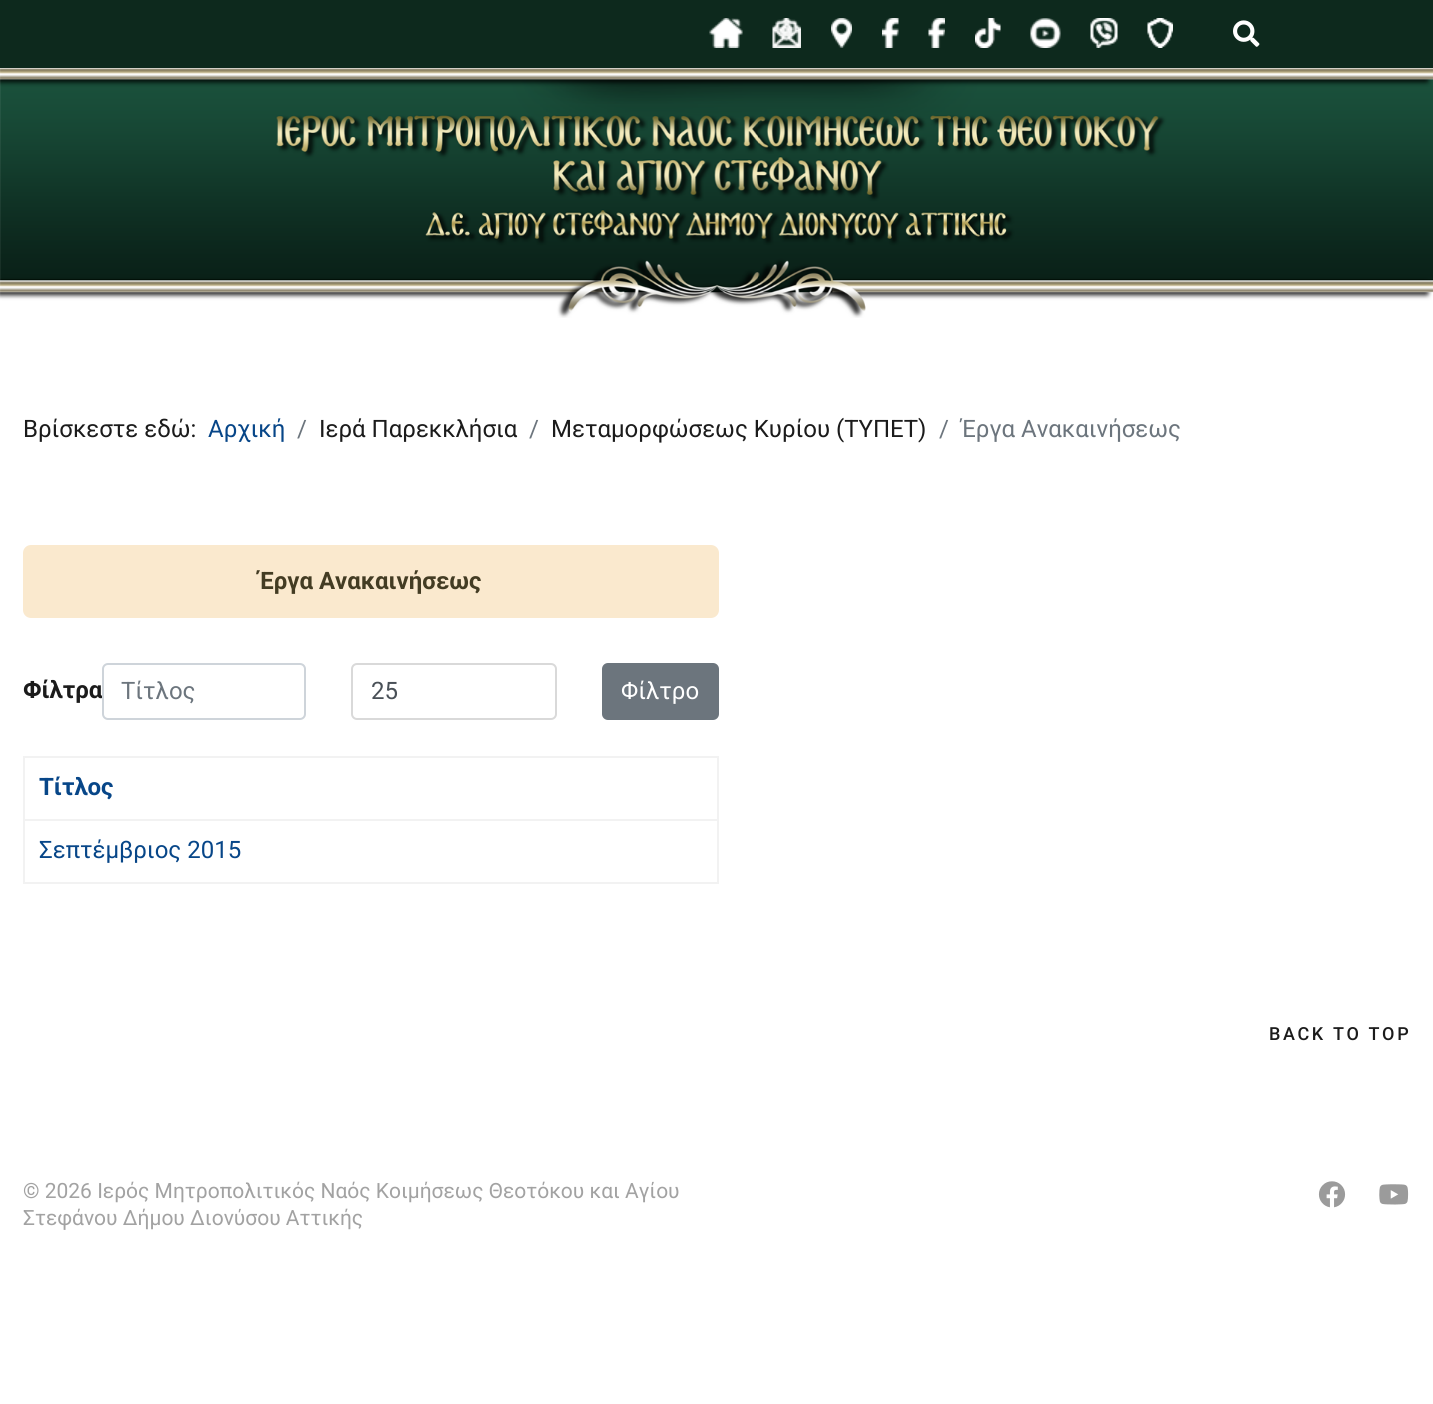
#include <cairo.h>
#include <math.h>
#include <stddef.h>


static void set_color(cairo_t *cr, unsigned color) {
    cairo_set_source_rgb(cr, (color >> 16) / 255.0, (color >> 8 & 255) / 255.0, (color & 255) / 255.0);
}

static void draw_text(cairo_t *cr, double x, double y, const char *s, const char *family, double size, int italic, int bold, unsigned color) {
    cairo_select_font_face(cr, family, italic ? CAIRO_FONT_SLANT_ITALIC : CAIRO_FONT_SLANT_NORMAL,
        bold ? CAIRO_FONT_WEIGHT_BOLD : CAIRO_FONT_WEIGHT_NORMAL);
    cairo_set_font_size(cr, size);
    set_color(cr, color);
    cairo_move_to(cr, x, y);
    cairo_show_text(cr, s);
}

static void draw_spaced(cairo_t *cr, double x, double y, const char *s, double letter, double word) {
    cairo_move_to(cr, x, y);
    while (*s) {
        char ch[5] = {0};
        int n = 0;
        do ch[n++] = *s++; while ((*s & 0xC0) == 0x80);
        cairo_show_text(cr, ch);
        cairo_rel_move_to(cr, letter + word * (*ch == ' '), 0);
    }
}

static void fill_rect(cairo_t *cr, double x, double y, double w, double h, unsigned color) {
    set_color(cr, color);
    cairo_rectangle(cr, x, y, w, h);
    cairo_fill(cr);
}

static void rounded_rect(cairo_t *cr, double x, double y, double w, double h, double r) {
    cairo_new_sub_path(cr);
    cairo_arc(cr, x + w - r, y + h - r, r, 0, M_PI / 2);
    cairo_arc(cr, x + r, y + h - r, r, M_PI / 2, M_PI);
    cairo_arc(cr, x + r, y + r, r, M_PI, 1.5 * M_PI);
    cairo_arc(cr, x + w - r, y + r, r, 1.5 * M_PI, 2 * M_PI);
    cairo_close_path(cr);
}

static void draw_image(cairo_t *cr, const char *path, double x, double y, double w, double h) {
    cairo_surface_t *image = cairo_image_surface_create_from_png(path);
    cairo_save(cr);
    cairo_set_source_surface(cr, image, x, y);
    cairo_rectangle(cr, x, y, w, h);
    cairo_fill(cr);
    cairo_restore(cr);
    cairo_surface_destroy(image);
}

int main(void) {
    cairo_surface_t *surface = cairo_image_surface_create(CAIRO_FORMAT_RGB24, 1433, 1404);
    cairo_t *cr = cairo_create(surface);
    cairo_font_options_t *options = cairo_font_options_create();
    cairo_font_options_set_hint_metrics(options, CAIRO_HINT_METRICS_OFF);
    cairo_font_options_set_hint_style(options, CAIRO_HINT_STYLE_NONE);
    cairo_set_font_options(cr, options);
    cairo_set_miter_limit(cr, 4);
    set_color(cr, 0xFFFFFF);
    cairo_paint(cr);
    fill_rect(cr, 0, 0, 1433, 68, 0x0D291D);
    draw_image(cr, "assets/img1.png", 709, 18, 34, 30);
    draw_image(cr, "assets/img2.png", 772, 18, 29, 30);
    draw_image(cr, "assets/img3.png", 831, 18, 21, 30);
    draw_image(cr, "assets/img4.png", 882, 18, 17, 30);
    draw_image(cr, "assets/img5.png", 928, 18, 17, 30);
    draw_image(cr, "assets/img6.png", 975, 18, 26, 30);
    draw_image(cr, "assets/img7.png", 1030, 18, 31, 30);
    draw_image(cr, "assets/img8.png", 1090, 18, 28, 30);
    draw_image(cr, "assets/img9.png", 1147, 18, 26, 30);
    draw_image(cr, "assets/img10.png", 1233, 20, 27, 27);
    draw_image(cr, "assets/img11.png", 0, 68, 1433, 250);
    draw_text(cr, 23, 437, "Βρίσκεστε εδώ:", "Roboto", 24, 0, 0, 0x1B1B1B);
    draw_text(cr, 208, 437, "Αρχική", "Roboto", 24, 0, 0, 0x074688);
    draw_text(cr, 297, 437, "/", "Roboto", 24, 0, 0, 0x6C757D);
    draw_text(cr, 319, 437, "Ιερά Παρεκκλήσια", "Roboto", 24, 0, 0, 0x1B1B1B);
    draw_text(cr, 529, 437, "/", "Roboto", 24, 0, 0, 0x6C757D);
    draw_text(cr, 551, 437, "Μεταμορφώσεως Κυρίου (ΤΥΠΕΤ)", "Roboto", 24, 0, 0, 0x1B1B1B);
    draw_text(cr, 939, 437, "/", "Roboto", 24, 0, 0, 0x6C757D);
    draw_text(cr, 961, 437, "Έργα Ανακαινήσεως", "Roboto", 24, 0, 0, 0x6C757D);
    set_color(cr, 0xFAE9CE);
    rounded_rect(cr, 23, 545, 696, 73, 8);
    cairo_fill(cr);
    draw_text(cr, 259, 589, "Έργα Ανακαινήσεως", "Roboto", 24, 0, 1, 0x433C23);
    draw_text(cr, 23, 698, "Φίλτρα", "Roboto", 24, 0, 1, 0x1B1B1B);
    rounded_rect(cr, 103, 664, 202, 55, 5);
    set_color(cr, 0xCED4DA);
    cairo_stroke(cr);
    draw_text(cr, 121, 699, "Τίτλος", "Roboto", 24, 0, 0, 0x6C757D);
    rounded_rect(cr, 352, 664, 204, 55, 5);
    set_color(cr, 0xD9D9D9);
    cairo_stroke(cr);
    draw_text(cr, 371, 699, "25", "Roboto", 24, 0, 0, 0x495057);
    set_color(cr, 0x6C757D);
    rounded_rect(cr, 603, 664, 115, 55, 5);
    cairo_fill_preserve(cr);
    cairo_stroke(cr);
    draw_text(cr, 621, 699, "Φίλτρο", "Roboto", 24, 0, 0, 0xFFFFFF);
    fill_rect(cr, 23, 756, 696, 2, 0xF2F2F2);
    fill_rect(cr, 23, 819, 696, 2, 0xF2F2F2);
    fill_rect(cr, 717, 819, 2, 65, 0xF2F2F2);
    fill_rect(cr, 717, 756, 2, 65, 0xF2F2F2);
    fill_rect(cr, 23, 882, 696, 2, 0xF2F2F2);
    fill_rect(cr, 23, 819, 2, 65, 0xF2F2F2);
    fill_rect(cr, 23, 756, 2, 65, 0xF2F2F2);
    draw_text(cr, 39, 795, "Τίτλος", "Roboto", 24, 0, 1, 0x074688);
    draw_text(cr, 39, 858, "Σεπτέμβριος 2015", "Roboto", 24, 0, 0, 0x074688);
    cairo_select_font_face(cr, "Roboto Medium", CAIRO_FONT_SLANT_NORMAL, CAIRO_FONT_WEIGHT_NORMAL);
    cairo_set_font_size(cr, 18);
    set_color(cr, 0x1B1B1B);
    draw_spaced(cr, 1269, 1040, "BACK TO TOP", 2.6, 0);
    draw_text(cr, 23, 1198, "© 2026 Ιερός Μητροπολιτικός Ναός Κοιμήσεως Θεοτόκου και Αγίου", "Roboto", 21, 0, 0, 0xA2A2A2);
    draw_text(cr, 23, 1225, "Στεφάνου Δήμου Διονύσου Αττικής", "Roboto", 21, 0, 0, 0xA2A2A2);
    draw_image(cr, "assets/img12.png", 1318, 1181, 28, 27);
    draw_image(cr, "assets/img13.png", 1379, 1184, 30, 21);
    cairo_surface_write_to_png(surface, "output.png");
    cairo_font_options_destroy(options);
    cairo_destroy(cr);
    cairo_surface_destroy(surface);
    return 0;
}
